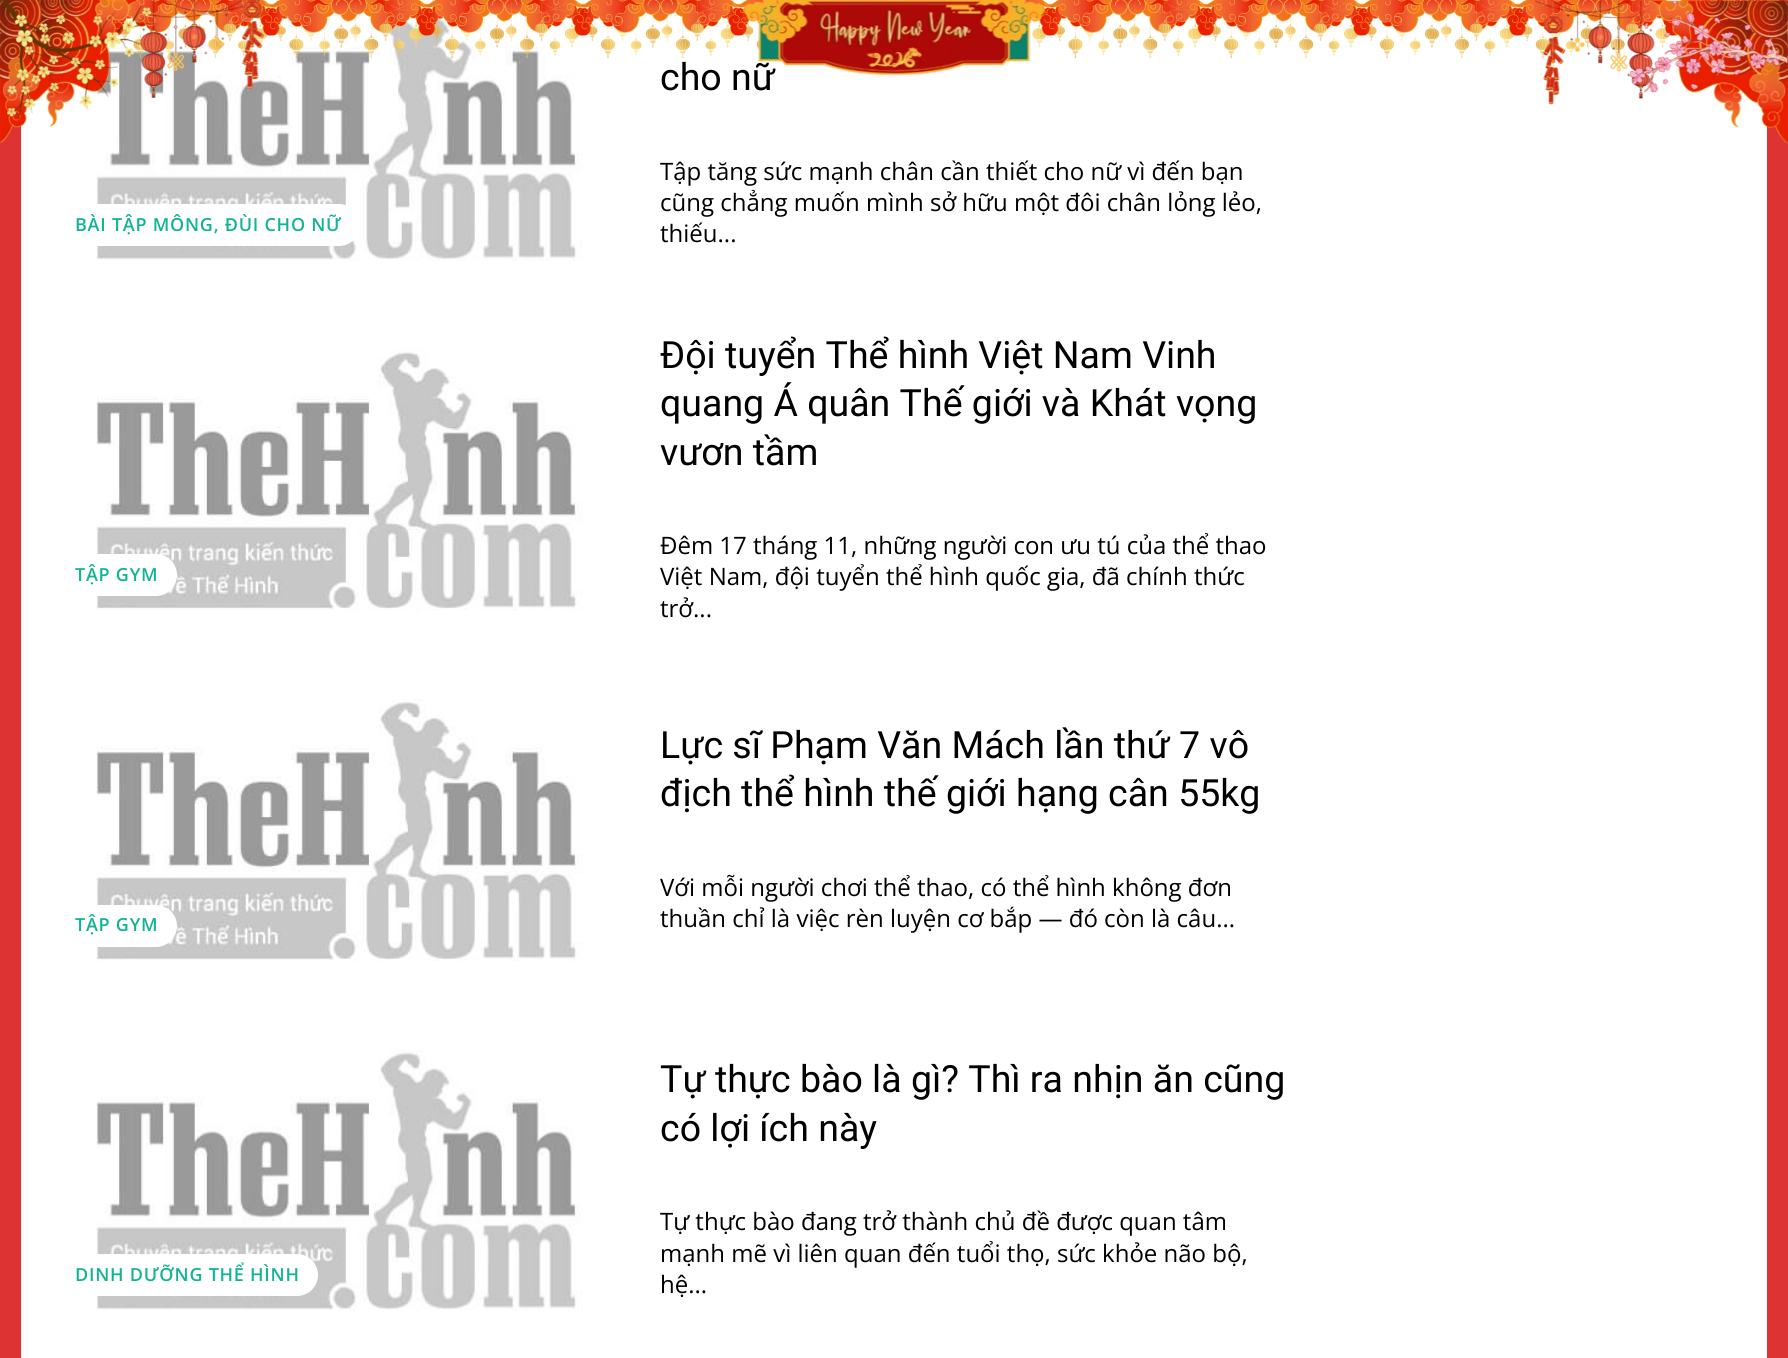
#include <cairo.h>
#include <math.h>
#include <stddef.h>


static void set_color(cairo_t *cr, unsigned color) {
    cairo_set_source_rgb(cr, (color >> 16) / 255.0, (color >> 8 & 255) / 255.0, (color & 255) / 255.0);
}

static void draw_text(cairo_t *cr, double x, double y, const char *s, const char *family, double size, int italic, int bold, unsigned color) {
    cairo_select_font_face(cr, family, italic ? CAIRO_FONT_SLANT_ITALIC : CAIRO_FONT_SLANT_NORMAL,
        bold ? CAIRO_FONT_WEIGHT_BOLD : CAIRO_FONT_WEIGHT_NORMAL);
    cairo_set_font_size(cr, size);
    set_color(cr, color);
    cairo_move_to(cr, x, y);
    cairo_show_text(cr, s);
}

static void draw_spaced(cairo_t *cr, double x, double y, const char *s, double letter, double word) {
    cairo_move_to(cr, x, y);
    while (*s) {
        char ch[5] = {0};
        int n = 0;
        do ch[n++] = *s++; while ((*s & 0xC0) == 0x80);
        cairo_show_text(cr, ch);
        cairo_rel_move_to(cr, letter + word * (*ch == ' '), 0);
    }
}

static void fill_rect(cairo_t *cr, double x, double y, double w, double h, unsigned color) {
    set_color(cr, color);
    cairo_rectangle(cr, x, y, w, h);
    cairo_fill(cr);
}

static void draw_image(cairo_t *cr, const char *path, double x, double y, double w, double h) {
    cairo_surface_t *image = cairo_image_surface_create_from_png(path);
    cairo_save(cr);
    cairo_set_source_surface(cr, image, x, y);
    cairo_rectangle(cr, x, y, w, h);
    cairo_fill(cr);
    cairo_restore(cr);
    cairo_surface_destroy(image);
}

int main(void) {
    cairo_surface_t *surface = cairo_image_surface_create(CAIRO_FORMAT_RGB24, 1788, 1358);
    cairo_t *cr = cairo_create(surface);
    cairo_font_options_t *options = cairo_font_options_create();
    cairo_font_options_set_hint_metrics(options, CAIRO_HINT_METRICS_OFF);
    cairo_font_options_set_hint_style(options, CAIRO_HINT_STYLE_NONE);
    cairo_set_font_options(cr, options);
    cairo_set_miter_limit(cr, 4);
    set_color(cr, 0xDD3333);
    cairo_paint(cr);
    fill_rect(cr, 21, 0, 1746, 1358, 0xFFFFFF);
    draw_image(cr, "assets/img5.png", 96, 1, 487, 260);
    draw_image(cr, "assets/img1.png", 0, 0, 1788, 59);
    draw_image(cr, "assets/img2.png", 0, 0, 265, 143);
    draw_text(cr, 660, 90, "cho nữ", "Roboto", 37.5, 0, 0, 0x000000);
    draw_image(cr, "assets/img3.png", 742, 0, 304, 76);
    draw_image(cr, "assets/img4.png", 1535, 0, 253, 144);
    set_color(cr, 0xFFFFFF);
    cairo_new_path(cr);
    cairo_move_to(cr, 57, 204);
    cairo_line_to(cr, 339, 204);
    cairo_curve_to(cr, 350.5, 204, 360, 213.5, 360, 225);
    cairo_curve_to(cr, 360, 236.5, 350.5, 246, 339, 246);
    cairo_line_to(cr, 57, 246);
    cairo_close_path(cr);
    cairo_fill(cr);
    cairo_select_font_face(cr, "Open Sans SemiBold", CAIRO_FONT_SLANT_NORMAL, CAIRO_FONT_WEIGHT_NORMAL);
    cairo_set_font_size(cr, 18);
    set_color(cr, 0x11B494);
    draw_spaced(cr, 75, 231, "BÀI TẬP MÔNG, ĐÙI CHO NỮ", 0.75, 0);
    draw_text(cr, 660, 180, "Tập tăng sức mạnh chân cần thiết cho nữ vì đến bạn", "Open Sans", 24, 0, 0, 0x000000);
    draw_text(cr, 660, 211, "cũng chẳng muốn mình sở hữu một đôi chân lỏng lẻo,", "Open Sans", 24, 0, 0, 0x000000);
    draw_text(cr, 660, 242, "thiếu...", "Open Sans", 24, 0, 0, 0x000000);
    draw_image(cr, "assets/img6.png", 96, 349, 487, 262);
    set_color(cr, 0xFFFFFF);
    cairo_new_path(cr);
    cairo_move_to(cr, 57, 554);
    cairo_line_to(cr, 156, 554);
    cairo_curve_to(cr, 167.5, 554, 177, 563.5, 177, 575);
    cairo_curve_to(cr, 177, 586.5, 167.5, 596, 156, 596);
    cairo_line_to(cr, 57, 596);
    cairo_close_path(cr);
    cairo_fill(cr);
    cairo_select_font_face(cr, "Open Sans SemiBold", CAIRO_FONT_SLANT_NORMAL, CAIRO_FONT_WEIGHT_NORMAL);
    cairo_set_font_size(cr, 18);
    set_color(cr, 0x11B494);
    draw_spaced(cr, 75, 581, "TẬP GYM", 0.75, 0);
    draw_text(cr, 660, 368, "Đội tuyển Thể hình Việt Nam Vinh", "Roboto", 37.5, 0, 0, 0x000000);
    draw_text(cr, 660, 416, "quang Á quân Thế giới và Khát vọng", "Roboto", 37.5, 0, 0, 0x000000);
    draw_text(cr, 660, 465, "vươn tầm", "Roboto", 37.5, 0, 0, 0x000000);
    draw_text(cr, 660, 554, "Đêm 17 tháng 11, những người con ưu tú của thể thao", "Open Sans", 24, 0, 0, 0x000000);
    draw_text(cr, 660, 585, "Việt Nam, đội tuyển thể hình quốc gia, đã chính thức", "Open Sans", 24, 0, 0, 0x000000);
    draw_text(cr, 660, 617, "trở...", "Open Sans", 24, 0, 0, 0x000000);
    draw_image(cr, "assets/img7.png", 96, 699, 487, 262);
    set_color(cr, 0xFFFFFF);
    cairo_new_path(cr);
    cairo_move_to(cr, 57, 905);
    cairo_line_to(cr, 156, 905);
    cairo_curve_to(cr, 167.5, 905, 177, 914.5, 177, 926);
    cairo_curve_to(cr, 177, 937.5, 167.5, 947, 156, 947);
    cairo_line_to(cr, 57, 947);
    cairo_close_path(cr);
    cairo_fill(cr);
    cairo_select_font_face(cr, "Open Sans SemiBold", CAIRO_FONT_SLANT_NORMAL, CAIRO_FONT_WEIGHT_NORMAL);
    cairo_set_font_size(cr, 18);
    set_color(cr, 0x11B494);
    draw_spaced(cr, 75, 931, "TẬP GYM", 0.75, 0);
    draw_text(cr, 660, 758, "Lực sĩ Phạm Văn Mách lần thứ 7 vô", "Roboto", 37.5, 0, 0, 0x000000);
    draw_text(cr, 660, 806, "địch thể hình thế giới hạng cân 55kg", "Roboto", 37.5, 0, 0, 0x000000);
    draw_text(cr, 660, 896, "Với mỗi người chơi thể thao, có thể hình không đơn", "Open Sans", 24, 0, 0, 0x000000);
    draw_text(cr, 660, 927, "thuần chỉ là việc rèn luyện cơ bắp — đó còn là câu...", "Open Sans", 24, 0, 0, 0x000000);
    draw_image(cr, "assets/img8.png", 96, 1050, 487, 261);
    set_color(cr, 0xFFFFFF);
    cairo_new_path(cr);
    cairo_move_to(cr, 57, 1254);
    cairo_line_to(cr, 297, 1254);
    cairo_curve_to(cr, 308.5, 1254, 318, 1263.5, 318, 1275);
    cairo_curve_to(cr, 318, 1286.5, 308.5, 1296, 297, 1296);
    cairo_line_to(cr, 57, 1296);
    cairo_close_path(cr);
    cairo_fill(cr);
    cairo_select_font_face(cr, "Open Sans SemiBold", CAIRO_FONT_SLANT_NORMAL, CAIRO_FONT_WEIGHT_NORMAL);
    cairo_set_font_size(cr, 18);
    set_color(cr, 0x11B494);
    draw_spaced(cr, 75, 1281, "DINH DƯỠNG THỂ HÌNH", 0.75, 0);
    draw_text(cr, 660, 1092, "Tự thực bào là gì? Thì ra nhịn ăn cũng", "Roboto", 37.5, 0, 0, 0x000000);
    draw_text(cr, 660, 1141, "có lợi ích này", "Roboto", 37.5, 0, 0, 0x000000);
    draw_text(cr, 660, 1230, "Tự thực bào đang trở thành chủ đề được quan tâm", "Open Sans", 24, 0, 0, 0x000000);
    draw_text(cr, 660, 1262, "mạnh mẽ vì liên quan đến tuổi thọ, sức khỏe não bộ,", "Open Sans", 24, 0, 0, 0x000000);
    draw_text(cr, 660, 1293, "hệ...", "Open Sans", 24, 0, 0, 0x000000);
    cairo_surface_write_to_png(surface, "output.png");
    cairo_font_options_destroy(options);
    cairo_destroy(cr);
    cairo_surface_destroy(surface);
    return 0;
}
